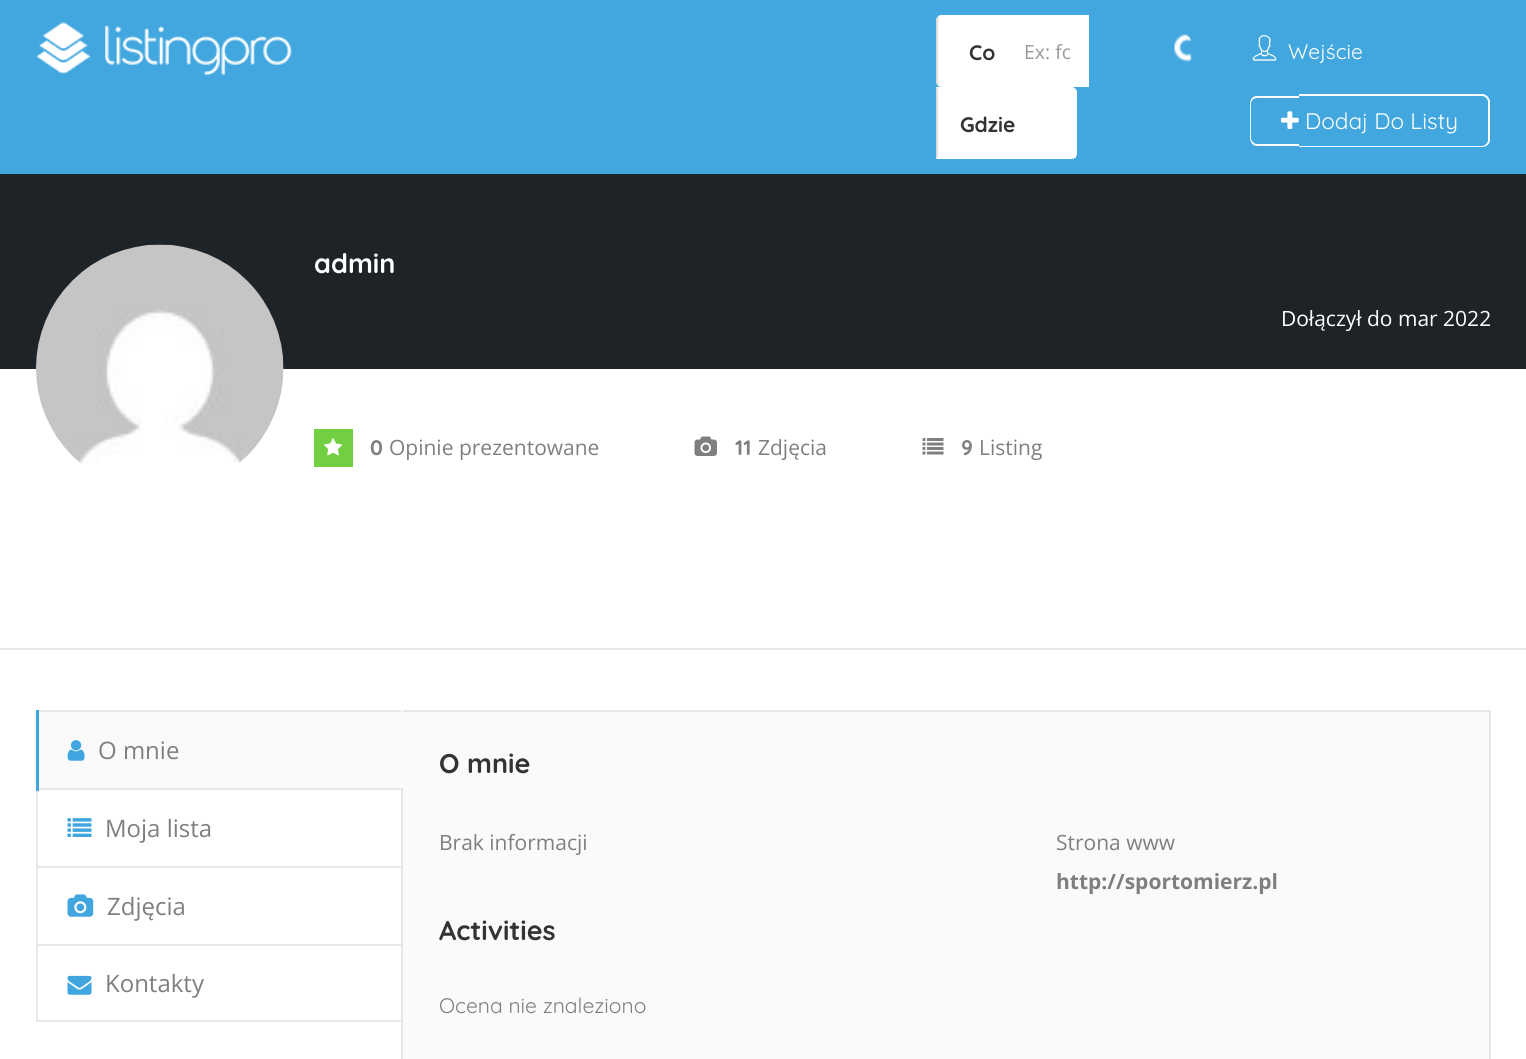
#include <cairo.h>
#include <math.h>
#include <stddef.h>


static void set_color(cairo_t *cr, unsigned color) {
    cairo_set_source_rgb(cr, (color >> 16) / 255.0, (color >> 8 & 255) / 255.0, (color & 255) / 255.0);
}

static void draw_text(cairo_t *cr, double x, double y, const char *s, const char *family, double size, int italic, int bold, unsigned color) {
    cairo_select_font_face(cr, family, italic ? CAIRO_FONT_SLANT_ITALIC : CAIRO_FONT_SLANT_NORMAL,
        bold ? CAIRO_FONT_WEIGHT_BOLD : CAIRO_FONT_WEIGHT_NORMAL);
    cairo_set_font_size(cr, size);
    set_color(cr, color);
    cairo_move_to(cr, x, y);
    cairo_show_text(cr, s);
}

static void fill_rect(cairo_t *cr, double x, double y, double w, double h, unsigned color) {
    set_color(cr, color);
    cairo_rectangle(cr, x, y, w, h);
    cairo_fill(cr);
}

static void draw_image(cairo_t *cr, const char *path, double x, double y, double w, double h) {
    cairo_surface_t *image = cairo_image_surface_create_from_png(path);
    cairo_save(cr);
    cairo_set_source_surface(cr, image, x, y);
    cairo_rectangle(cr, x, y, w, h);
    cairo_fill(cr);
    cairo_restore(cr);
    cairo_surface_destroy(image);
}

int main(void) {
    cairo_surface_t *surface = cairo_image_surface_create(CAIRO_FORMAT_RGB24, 1526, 1059);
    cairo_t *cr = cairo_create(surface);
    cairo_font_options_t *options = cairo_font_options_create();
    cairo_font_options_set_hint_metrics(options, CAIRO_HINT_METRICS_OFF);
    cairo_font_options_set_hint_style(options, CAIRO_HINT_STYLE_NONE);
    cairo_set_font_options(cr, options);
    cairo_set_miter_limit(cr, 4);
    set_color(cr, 0xFFFFFF);
    cairo_paint(cr);
    fill_rect(cr, 0, 0, 1526, 174, 0x42A7DF);
    draw_image(cr, "assets/img1.png", 37, 22, 255, 53);
    set_color(cr, 0xFFFFFF);
    cairo_new_path(cr);
    cairo_move_to(cr, 942, 15);
    cairo_line_to(cr, 1089, 15);
    cairo_line_to(cr, 1089, 87);
    cairo_line_to(cr, 942, 87);
    cairo_curve_to(cr, 938.5, 87, 936, 84.5, 936, 81);
    cairo_line_to(cr, 936, 21);
    cairo_curve_to(cr, 936, 17.5, 938.5, 15, 942, 15);
    cairo_close_path(cr);
    cairo_fill(cr);
    cairo_new_path(cr);
    cairo_move_to(cr, 942, 15);
    cairo_curve_to(cr, 940, 15, 939, 16, 938, 17);
    cairo_line_to(cr, 939, 18);
    cairo_line_to(cr, 942, 16);
    cairo_line_to(cr, 1088, 16);
    cairo_line_to(cr, 1089, 15);
    cairo_close_path(cr);
    cairo_fill(cr);
    cairo_new_path(cr);
    cairo_move_to(cr, 1089, 87);
    cairo_line_to(cr, 1088, 86);
    cairo_line_to(cr, 942, 86);
    cairo_line_to(cr, 939, 84);
    cairo_line_to(cr, 938, 85);
    cairo_curve_to(cr, 939, 86, 940, 87, 942, 87);
    cairo_close_path(cr);
    cairo_fill(cr);
    set_color(cr, 0xDEDEDE);
    cairo_new_path(cr);
    cairo_move_to(cr, 936, 21);
    cairo_line_to(cr, 936, 81);
    cairo_curve_to(cr, 936, 82, 937, 84, 938, 85);
    cairo_line_to(cr, 939, 84);
    cairo_line_to(cr, 938, 81);
    cairo_line_to(cr, 938, 21);
    cairo_line_to(cr, 939, 18);
    cairo_line_to(cr, 938, 17);
    cairo_curve_to(cr, 937, 18, 936, 20, 936, 21);
    cairo_close_path(cr);
    cairo_fill(cr);
    draw_text(cr, 969, 60, "Co", "Quicksand", 21, 0, 1, 0x333333);
    cairo_save(cr);
    cairo_rectangle(cr, 1025, 38, 45, 27);
    cairo_clip(cr);
    draw_text(cr, 1024, 59, "Ex: fo", "Open Sans", 19.5, 0, 0, 0x999999);
    cairo_restore(cr);
    draw_image(cr, "assets/img2.png", 1174, 34, 18, 29);
    set_color(cr, 0xFFFFFF);
    cairo_new_path(cr);
    cairo_move_to(cr, 936, 87);
    cairo_line_to(cr, 1071, 87);
    cairo_curve_to(cr, 1074.5, 87, 1077, 89.5, 1077, 93);
    cairo_line_to(cr, 1077, 153);
    cairo_curve_to(cr, 1077, 156.5, 1074.5, 159, 1071, 159);
    cairo_line_to(cr, 936, 159);
    cairo_close_path(cr);
    cairo_fill(cr);
    cairo_new_path(cr);
    cairo_move_to(cr, 936, 87);
    cairo_line_to(cr, 938, 89);
    cairo_line_to(cr, 938, 88);
    cairo_line_to(cr, 1071, 88);
    cairo_line_to(cr, 1074, 90);
    cairo_line_to(cr, 1075, 89);
    cairo_curve_to(cr, 1074, 88, 1072, 87, 1071, 87);
    cairo_close_path(cr);
    cairo_fill(cr);
    cairo_new_path(cr);
    cairo_move_to(cr, 1077, 153);
    cairo_line_to(cr, 1077, 93);
    cairo_curve_to(cr, 1077, 92, 1076, 90, 1075, 89);
    cairo_line_to(cr, 1074, 90);
    cairo_line_to(cr, 1076, 93);
    cairo_line_to(cr, 1076, 153);
    cairo_line_to(cr, 1074, 156);
    cairo_line_to(cr, 1075, 157);
    cairo_curve_to(cr, 1076, 156, 1077, 154, 1077, 153);
    cairo_close_path(cr);
    cairo_fill(cr);
    cairo_new_path(cr);
    cairo_move_to(cr, 1071, 159);
    cairo_curve_to(cr, 1072, 159, 1074, 158, 1075, 157);
    cairo_line_to(cr, 1074, 156);
    cairo_line_to(cr, 1071, 158);
    cairo_line_to(cr, 938, 158);
    cairo_line_to(cr, 938, 157);
    cairo_line_to(cr, 936, 159);
    cairo_close_path(cr);
    cairo_fill(cr);
    set_color(cr, 0xDEDEDE);
    cairo_new_path(cr);
    cairo_move_to(cr, 936, 87);
    cairo_line_to(cr, 936, 159);
    cairo_line_to(cr, 938, 157);
    cairo_line_to(cr, 938, 89);
    cairo_close_path(cr);
    cairo_fill(cr);
    draw_text(cr, 960, 132, "Gdzie", "Quicksand", 21, 0, 1, 0x333333);
    fill_rect(cr, 1074, 89, 2, 69, 0xFFFFFF);
    draw_image(cr, "assets/img3.png", 1252, 35, 25, 26);
    draw_text(cr, 1288, 59, "Wejście", "Quicksand", 21, 0, 0, 0xFFFFFF);
    cairo_set_fill_rule(cr, CAIRO_FILL_RULE_EVEN_ODD);
    cairo_new_path(cr);
    cairo_move_to(cr, 1257, 96);
    cairo_line_to(cr, 1299, 96);
    cairo_line_to(cr, 1299, 146);
    cairo_line_to(cr, 1257, 146);
    cairo_curve_to(cr, 1253, 146, 1250, 142, 1250, 138);
    cairo_line_to(cr, 1250, 104);
    cairo_curve_to(cr, 1250, 99, 1253, 96, 1257, 96);
    cairo_close_path(cr);
    cairo_move_to(cr, 1257, 98);
    cairo_line_to(cr, 1299, 98);
    cairo_line_to(cr, 1299, 144);
    cairo_line_to(cr, 1257, 144);
    cairo_curve_to(cr, 1254, 144, 1251, 141, 1251, 138);
    cairo_line_to(cr, 1251, 104);
    cairo_curve_to(cr, 1251, 100, 1254, 98, 1257, 98);
    cairo_close_path(cr);
    cairo_fill(cr);
    cairo_new_path(cr);
    cairo_move_to(cr, 1299, 94);
    cairo_line_to(cr, 1482, 94);
    cairo_curve_to(cr, 1486, 94, 1490, 98, 1490, 102);
    cairo_line_to(cr, 1490, 140);
    cairo_curve_to(cr, 1490, 144, 1486, 147, 1482, 147);
    cairo_line_to(cr, 1299, 147);
    cairo_close_path(cr);
    cairo_move_to(cr, 1299, 96);
    cairo_line_to(cr, 1482, 96);
    cairo_curve_to(cr, 1485, 96, 1488, 99, 1488, 102);
    cairo_line_to(cr, 1488, 140);
    cairo_curve_to(cr, 1488, 143, 1485, 146, 1482, 146);
    cairo_line_to(cr, 1299, 146);
    cairo_close_path(cr);
    cairo_fill(cr);
    draw_image(cr, "assets/img4.png", 1281, 111, 18, 18);
    draw_text(cr, 1305, 129, "Dodaj Do Listy", "Quicksand", 22.5, 0, 0, 0xFFFFFF);
    fill_rect(cr, 0, 174, 1526, 195, 0x1D2327);
    draw_image(cr, "assets/img5.png", 36, 244, 248, 220);
    draw_text(cr, 314, 273, "admin", "Quicksand", 27, 0, 1, 0xFFFFFF);
    draw_text(cr, 1281, 326, "Dołączył do mar 2022", "Open Sans", 21, 0, 0, 0xFFFFFF);
    fill_rect(cr, 0, 648, 1526, 2, 0xE7E7E7);
    fill_rect(cr, 314, 429, 39, 38, 0x73CF42);
    draw_image(cr, "assets/img6.png", 324, 438, 19, 18);
    draw_text(cr, 370, 455, "0", "Quicksand", 21, 0, 1, 0x7F7F7F);
    draw_text(cr, 389, 455, "Opinie prezentowane", "Open Sans", 21, 0, 0, 0x7F7F7F);
    draw_image(cr, "assets/img7.png", 694, 436, 23, 20);
    draw_text(cr, 735, 455, "11", "Quicksand", 21, 0, 1, 0x7F7F7F);
    draw_text(cr, 758, 455, "Zdjęcia", "Open Sans", 21, 0, 0, 0x7F7F7F);
    draw_image(cr, "assets/img8.png", 922, 438, 22, 17);
    draw_text(cr, 961, 455, "9", "Quicksand", 21, 0, 1, 0x7F7F7F);
    draw_text(cr, 979, 455, "Listing", "Open Sans", 21, 0, 0, 0x7F7F7F);
    fill_rect(cr, 39, 712, 362, 76, 0xFAFAFA);
    fill_rect(cr, 36, 710, 365, 2, 0xE7E7E7);
    fill_rect(cr, 36, 788, 365, 2, 0xE7E7E7);
    fill_rect(cr, 36, 788, 2, 78, 0xE7E7E7);
    fill_rect(cr, 36, 710, 3, 81, 0x41A6DF);
    draw_image(cr, "assets/img9.png", 67, 740, 18, 21);
    draw_text(cr, 98, 759, "O mnie", "Open Sans", 24, 0, 0, 0x7F7F7F);
    set_color(cr, 0xFAFAFA);
    cairo_rectangle(cr, 402, 711, 1088, 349);
    cairo_fill_preserve(cr);
    set_color(cr, 0xE7E7E7);
    cairo_stroke(cr);
    fill_rect(cr, 401, 710, 2, 78, 0xFAFAFA);
    draw_image(cr, "assets/img10.png", 67, 818, 25, 19);
    draw_text(cr, 105, 837, "Moja lista", "Open Sans", 24, 0, 0, 0x7F7F7F);
    fill_rect(cr, 36, 866, 365, 2, 0xE7E7E7);
    fill_rect(cr, 36, 866, 2, 78, 0xE7E7E7);
    draw_image(cr, "assets/img11.png", 67, 894, 27, 23);
    draw_text(cr, 107, 915, "Zdjęcia", "Open Sans", 24, 0, 0, 0x7F7F7F);
    fill_rect(cr, 36, 944, 365, 2, 0xE7E7E7);
    fill_rect(cr, 36, 1020, 365, 2, 0xE7E7E7);
    fill_rect(cr, 36, 944, 2, 78, 0xE7E7E7);
    draw_image(cr, "assets/img12.png", 67, 975, 25, 20);
    draw_text(cr, 105, 992, "Kontakty", "Open Sans", 24, 0, 0, 0x7F7F7F);
    draw_text(cr, 439, 773, "O mnie", "Quicksand", 27, 0, 1, 0x333333);
    draw_text(cr, 439, 850, "Brak informacji", "Open Sans", 21, 0, 0, 0x7F7F7F);
    draw_text(cr, 1056, 850, "Strona www", "Open Sans", 21, 0, 0, 0x7F7F7F);
    draw_text(cr, 1056, 889, "http://sportomierz.pl", "Open Sans", 21, 0, 1, 0x7F7F7F);
    draw_text(cr, 439, 940, "Activities", "Quicksand", 27, 0, 1, 0x333333);
    draw_text(cr, 439, 1013, "Ocena nie znaleziono", "Quicksand", 21, 0, 0, 0x7F7F7F);
    cairo_surface_write_to_png(surface, "output.png");
    cairo_font_options_destroy(options);
    cairo_destroy(cr);
    cairo_surface_destroy(surface);
    return 0;
}
